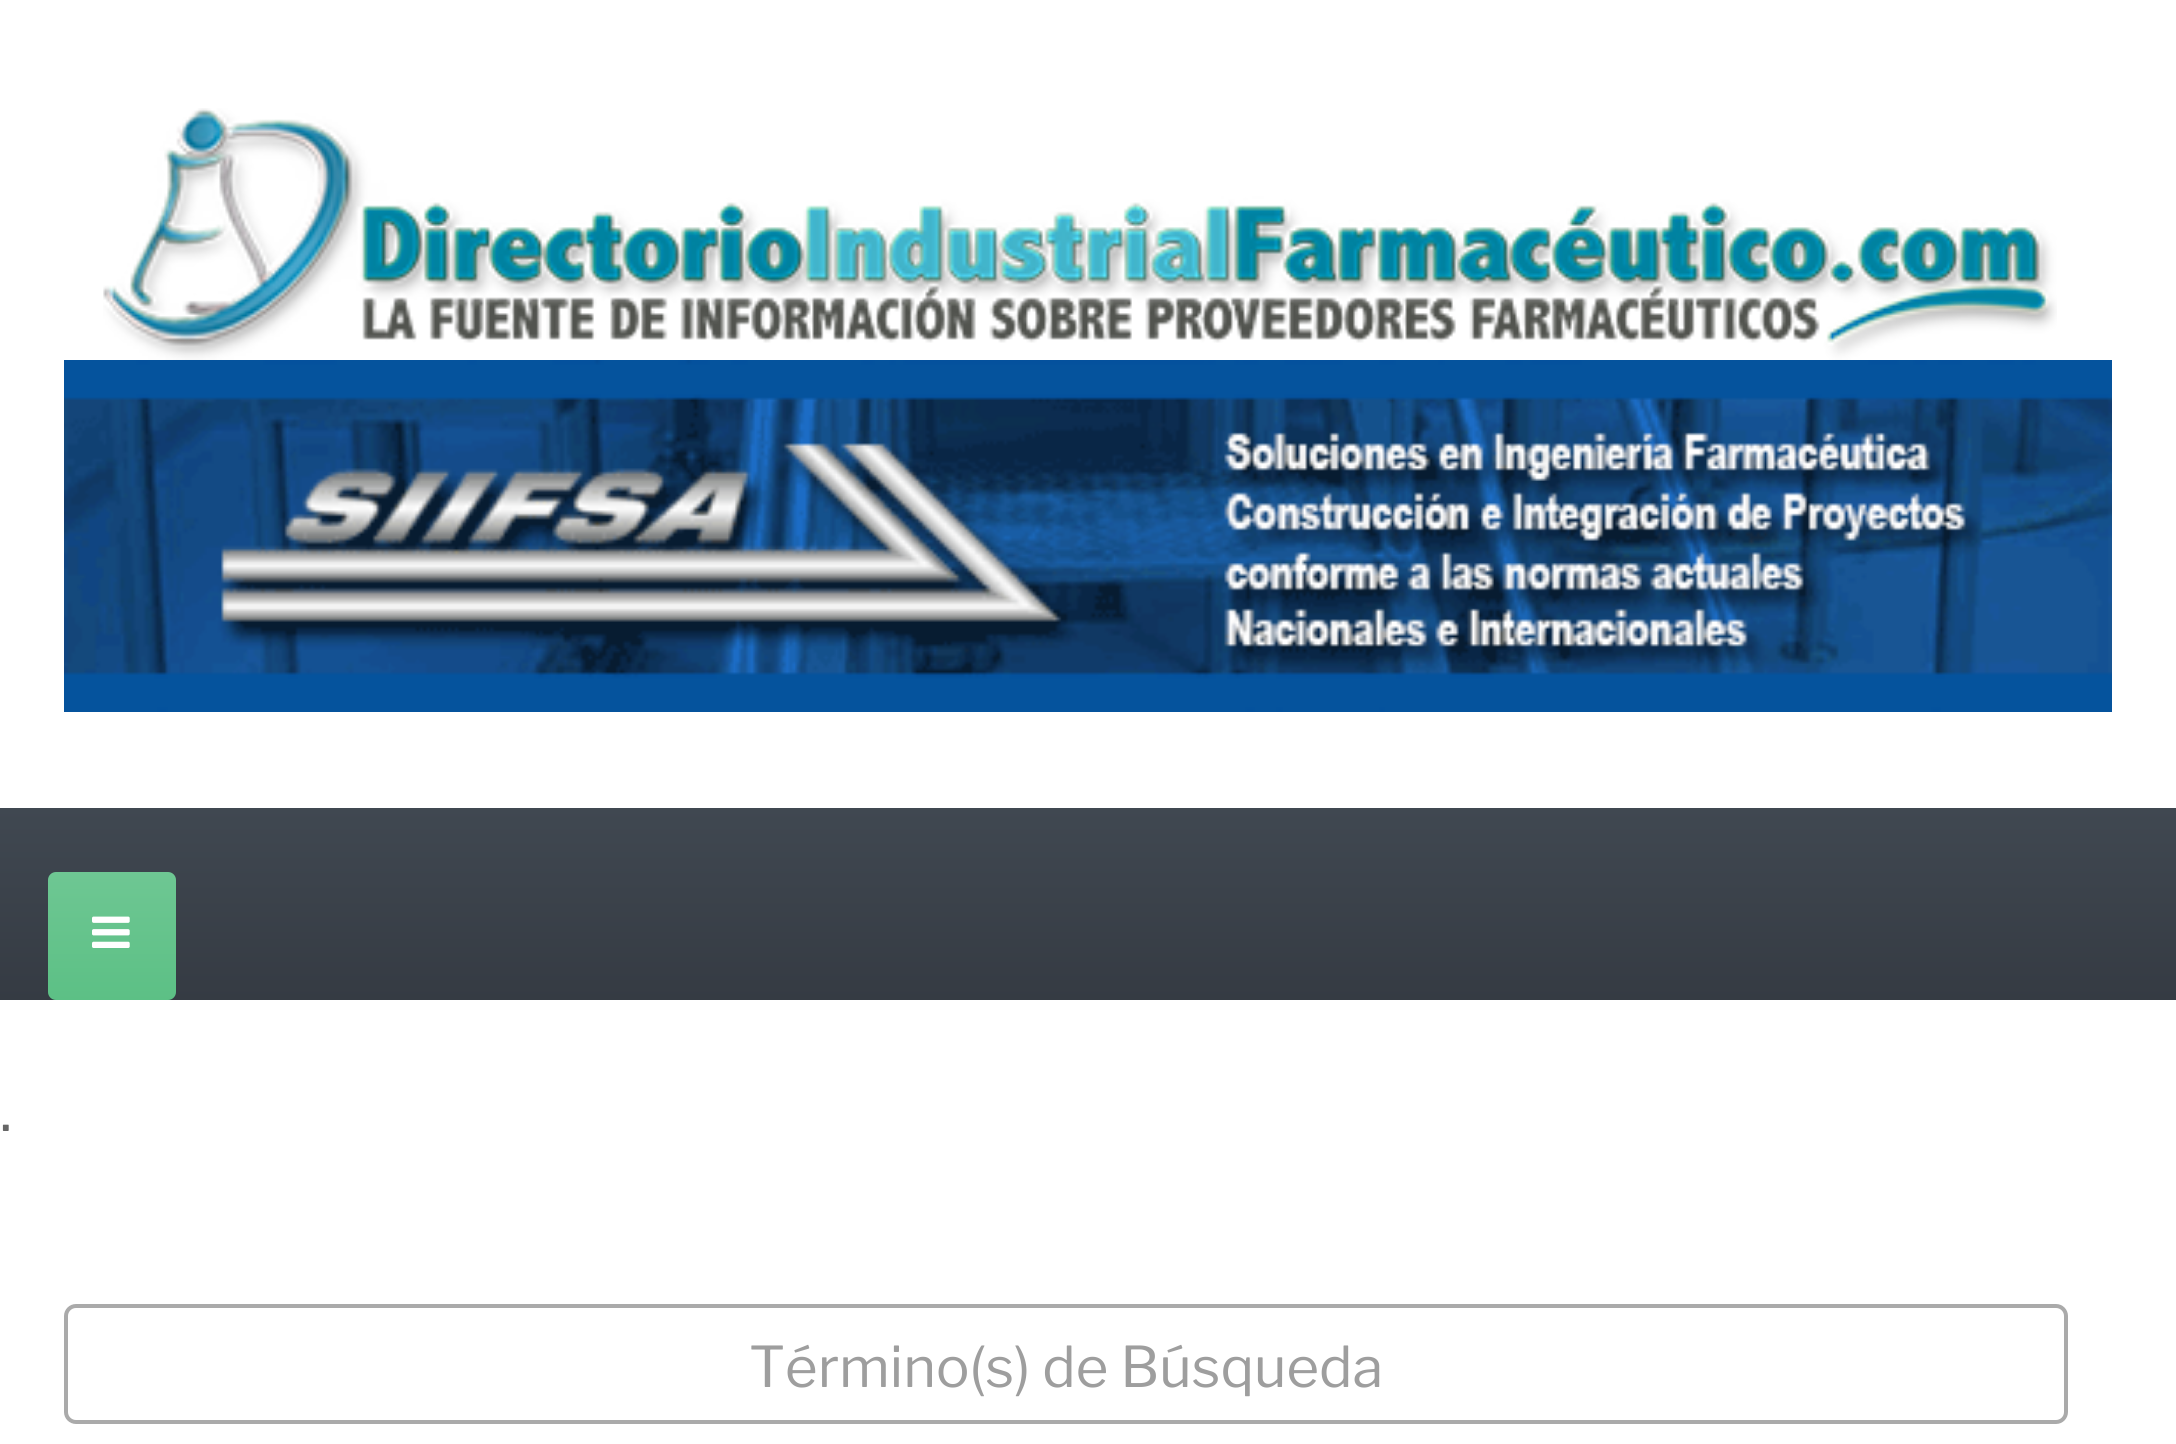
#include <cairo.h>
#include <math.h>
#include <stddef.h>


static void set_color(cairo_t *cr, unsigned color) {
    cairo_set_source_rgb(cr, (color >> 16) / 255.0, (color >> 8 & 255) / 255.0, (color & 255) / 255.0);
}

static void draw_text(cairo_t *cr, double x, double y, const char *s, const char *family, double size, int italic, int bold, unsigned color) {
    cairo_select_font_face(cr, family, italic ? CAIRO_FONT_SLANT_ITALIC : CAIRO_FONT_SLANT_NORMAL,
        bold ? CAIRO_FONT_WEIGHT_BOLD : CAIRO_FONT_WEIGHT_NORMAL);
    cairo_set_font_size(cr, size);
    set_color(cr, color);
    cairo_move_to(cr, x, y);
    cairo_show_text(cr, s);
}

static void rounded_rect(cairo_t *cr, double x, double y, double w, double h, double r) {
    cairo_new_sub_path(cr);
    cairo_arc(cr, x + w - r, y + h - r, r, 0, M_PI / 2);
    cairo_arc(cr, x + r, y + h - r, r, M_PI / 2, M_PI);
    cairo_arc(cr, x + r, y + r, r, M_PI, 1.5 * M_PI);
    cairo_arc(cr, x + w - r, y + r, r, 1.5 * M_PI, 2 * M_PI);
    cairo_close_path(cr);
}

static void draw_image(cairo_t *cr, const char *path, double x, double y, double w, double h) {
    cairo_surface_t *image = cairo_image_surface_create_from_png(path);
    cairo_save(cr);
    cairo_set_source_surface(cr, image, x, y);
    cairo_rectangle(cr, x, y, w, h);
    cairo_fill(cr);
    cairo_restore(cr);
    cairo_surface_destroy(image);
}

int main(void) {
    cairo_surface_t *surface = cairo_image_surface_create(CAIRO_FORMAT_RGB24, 2176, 1444);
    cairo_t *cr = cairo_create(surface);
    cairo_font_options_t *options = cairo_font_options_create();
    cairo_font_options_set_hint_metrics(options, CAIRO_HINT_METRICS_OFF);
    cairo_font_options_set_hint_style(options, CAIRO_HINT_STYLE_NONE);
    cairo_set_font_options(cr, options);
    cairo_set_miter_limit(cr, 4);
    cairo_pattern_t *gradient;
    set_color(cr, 0xFFFFFF);
    cairo_paint(cr);
    draw_image(cr, "assets/img1.png", 103, 108, 1954, 252);
    draw_image(cr, "assets/img2.png", 64, 360, 2048, 352);
    gradient = cairo_pattern_create_linear(1088, 808, 1088, 1000);
    cairo_pattern_add_color_stop_rgba(gradient, 0, 0.251, 0.282, 0.318, 1);
    cairo_pattern_add_color_stop_rgba(gradient, 1, 0.208, 0.231, 0.263, 1);
    cairo_set_source(cr, gradient);
    cairo_pattern_destroy(gradient);
    cairo_rectangle(cr, 0, 808, 2176, 192);
    cairo_fill(cr);
    gradient = cairo_pattern_create_linear(112, 872, 112, 1000);
    cairo_pattern_add_color_stop_rgba(gradient, 0, 0.431, 0.78, 0.576, 1);
    cairo_pattern_add_color_stop_rgba(gradient, 1, 0.361, 0.753, 0.522, 1);
    cairo_set_source(cr, gradient);
    cairo_pattern_destroy(gradient);
    rounded_rect(cr, 48, 872, 128, 128, 8);
    cairo_fill(cr);
    draw_image(cr, "assets/img3.png", 92, 916, 38, 32);
    draw_text(cr, 0, 1131, ".", "Libre Franklin", 56, 0, 0, 0x666666);
    rounded_rect(cr, 66, 1306, 2000, 116, 10);
    set_color(cr, 0xAAAAAA);
    cairo_set_line_width(cr, 4);
    cairo_stroke(cr);
    draw_text(cr, 749, 1387, "Término(s) de Búsqueda", "Libre Franklin", 56, 0, 0, 0x9E9E9E);
    cairo_surface_write_to_png(surface, "output.png");
    cairo_font_options_destroy(options);
    cairo_destroy(cr);
    cairo_surface_destroy(surface);
    return 0;
}
